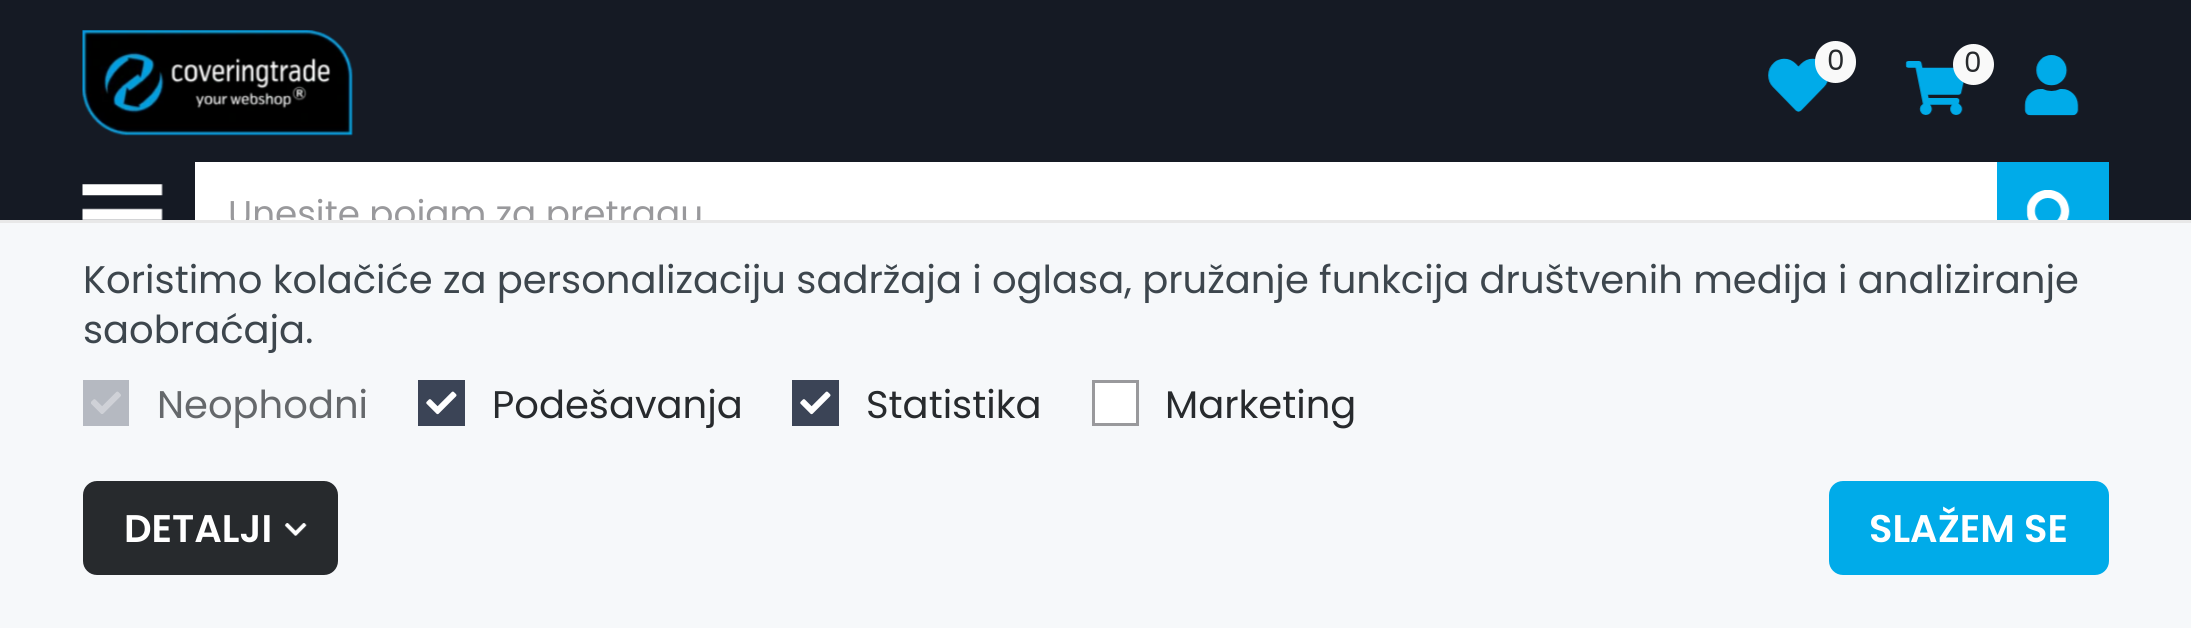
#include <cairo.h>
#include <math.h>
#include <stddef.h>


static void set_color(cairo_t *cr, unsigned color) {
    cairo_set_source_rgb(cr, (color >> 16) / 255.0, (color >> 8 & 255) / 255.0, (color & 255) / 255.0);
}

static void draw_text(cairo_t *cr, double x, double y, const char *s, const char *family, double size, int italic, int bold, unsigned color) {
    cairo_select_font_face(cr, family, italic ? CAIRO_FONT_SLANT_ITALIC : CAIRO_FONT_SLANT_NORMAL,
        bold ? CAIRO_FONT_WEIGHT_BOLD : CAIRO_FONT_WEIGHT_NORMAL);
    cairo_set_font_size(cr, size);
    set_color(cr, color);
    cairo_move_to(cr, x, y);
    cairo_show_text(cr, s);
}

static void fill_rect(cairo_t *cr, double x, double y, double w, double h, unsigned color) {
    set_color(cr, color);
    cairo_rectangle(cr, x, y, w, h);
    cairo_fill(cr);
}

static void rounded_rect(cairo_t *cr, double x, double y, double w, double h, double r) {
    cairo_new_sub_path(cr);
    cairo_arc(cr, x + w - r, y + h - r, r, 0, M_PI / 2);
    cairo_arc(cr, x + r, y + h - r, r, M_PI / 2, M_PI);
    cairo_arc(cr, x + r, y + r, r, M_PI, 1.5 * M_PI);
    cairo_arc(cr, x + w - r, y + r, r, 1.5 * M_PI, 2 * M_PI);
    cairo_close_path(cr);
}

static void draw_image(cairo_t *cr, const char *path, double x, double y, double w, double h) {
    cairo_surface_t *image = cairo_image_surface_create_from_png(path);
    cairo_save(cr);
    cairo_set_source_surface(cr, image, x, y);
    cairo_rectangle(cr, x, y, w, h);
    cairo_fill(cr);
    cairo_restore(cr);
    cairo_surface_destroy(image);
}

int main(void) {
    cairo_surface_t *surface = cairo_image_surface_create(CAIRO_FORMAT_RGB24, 2191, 628);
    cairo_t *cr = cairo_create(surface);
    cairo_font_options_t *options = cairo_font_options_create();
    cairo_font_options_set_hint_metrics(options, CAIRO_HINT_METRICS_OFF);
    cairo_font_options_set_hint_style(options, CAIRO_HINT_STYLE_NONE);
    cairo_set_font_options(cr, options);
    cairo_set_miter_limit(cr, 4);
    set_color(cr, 0x151A24);
    cairo_paint(cr);
    draw_image(cr, "assets/img1.png", 82, 30, 271, 106);
    draw_image(cr, "assets/img2.png", 1768, 58, 61, 54);
    set_color(cr, 0xF9F9F9);
    rounded_rect(cr, 1815, 41, 41, 42, 20.5);
    cairo_fill(cr);
    draw_text(cr, 1827, 70, "0", "Poppins", 28, 0, 0, 0x272A2D);
    draw_image(cr, "assets/img3.png", 1905, 61, 60, 54);
    set_color(cr, 0xF9F9F9);
    cairo_arc(cr, 1973.5, 64.5, 20.5, 0, 2 * M_PI);
    cairo_fill(cr);
    draw_text(cr, 1964, 72, "0", "Poppins", 28, 0, 0, 0x272A2D);
    draw_image(cr, "assets/img4.png", 2024, 55, 55, 61);
    draw_image(cr, "assets/img5.png", 82, 184, 81, 36);
    fill_rect(cr, 195, 162, 1802, 58, 0xFFFFFF);
    draw_text(cr, 228, 226, "Unesite pojam za pretragu", "Poppins", 35.75, 0, 0, 0x99999C);
    fill_rect(cr, 1997, 162, 112, 58, 0x00ABE9);
    draw_image(cr, "assets/img6.png", 2026, 190, 44, 30);
    fill_rect(cr, 0, 223, 2191, 405, 0xF6F8FA);
    fill_rect(cr, 0, 220, 2191, 3, 0xE8E8E8);
    draw_text(cr, 83, 293, "Koristimo kolačiće za personalizaciju sadržaja i oglasa, pružanje funkcija društvenih medija i analiziranje", "Poppins", 38.5, 0, 0, 0x3D464D);
    draw_text(cr, 83, 343, "saobraćaja.", "Poppins", 38.5, 0, 0, 0x3D464D);
    fill_rect(cr, 83, 380, 46, 46, 0xB5B9C1);
    draw_image(cr, "assets/img7.png", 91, 391, 30, 23);
    draw_text(cr, 157, 418, "Neophodni", "Poppins", 38.5, 0, 0, 0x65686B);
    fill_rect(cr, 418, 380, 47, 46, 0x3B4456);
    draw_image(cr, "assets/img8.png", 426, 391, 31, 24);
    draw_text(cr, 492, 418, "Podešavanja", "Poppins", 38.5, 0, 0, 0x272A2D);
    fill_rect(cr, 792, 380, 47, 46, 0x3B4456);
    draw_image(cr, "assets/img8.png", 800, 391, 31, 24);
    draw_text(cr, 866, 418, "Statistika", "Poppins", 38.5, 0, 0, 0x272A2D);
    set_color(cr, 0xFFFFFF);
    cairo_rectangle(cr, 1093.5, 381.5, 44, 43);
    cairo_fill_preserve(cr);
    set_color(cr, 0x99999C);
    cairo_set_line_width(cr, 3);
    cairo_stroke(cr);
    draw_text(cr, 1165, 418, "Marketing", "Poppins", 38.5, 0, 0, 0x272A2D);
    rounded_rect(cr, 83, 481, 255, 94, 14);
    cairo_fill(cr);
    draw_text(cr, 124, 542, "DETALJI", "Poppins SemiBold", 38.5, 0, 0, 0xFFFFFF);
    draw_image(cr, "assets/img9.png", 284, 523, 23, 13);
    set_color(cr, 0x00ABE9);
    rounded_rect(cr, 1829, 481, 280, 94, 14);
    cairo_fill(cr);
    draw_text(cr, 1869, 542, "SLAŽEM SE", "Poppins SemiBold", 38.5, 0, 0, 0xFFFFFF);
    cairo_surface_write_to_png(surface, "output.png");
    cairo_font_options_destroy(options);
    cairo_destroy(cr);
    cairo_surface_destroy(surface);
    return 0;
}
